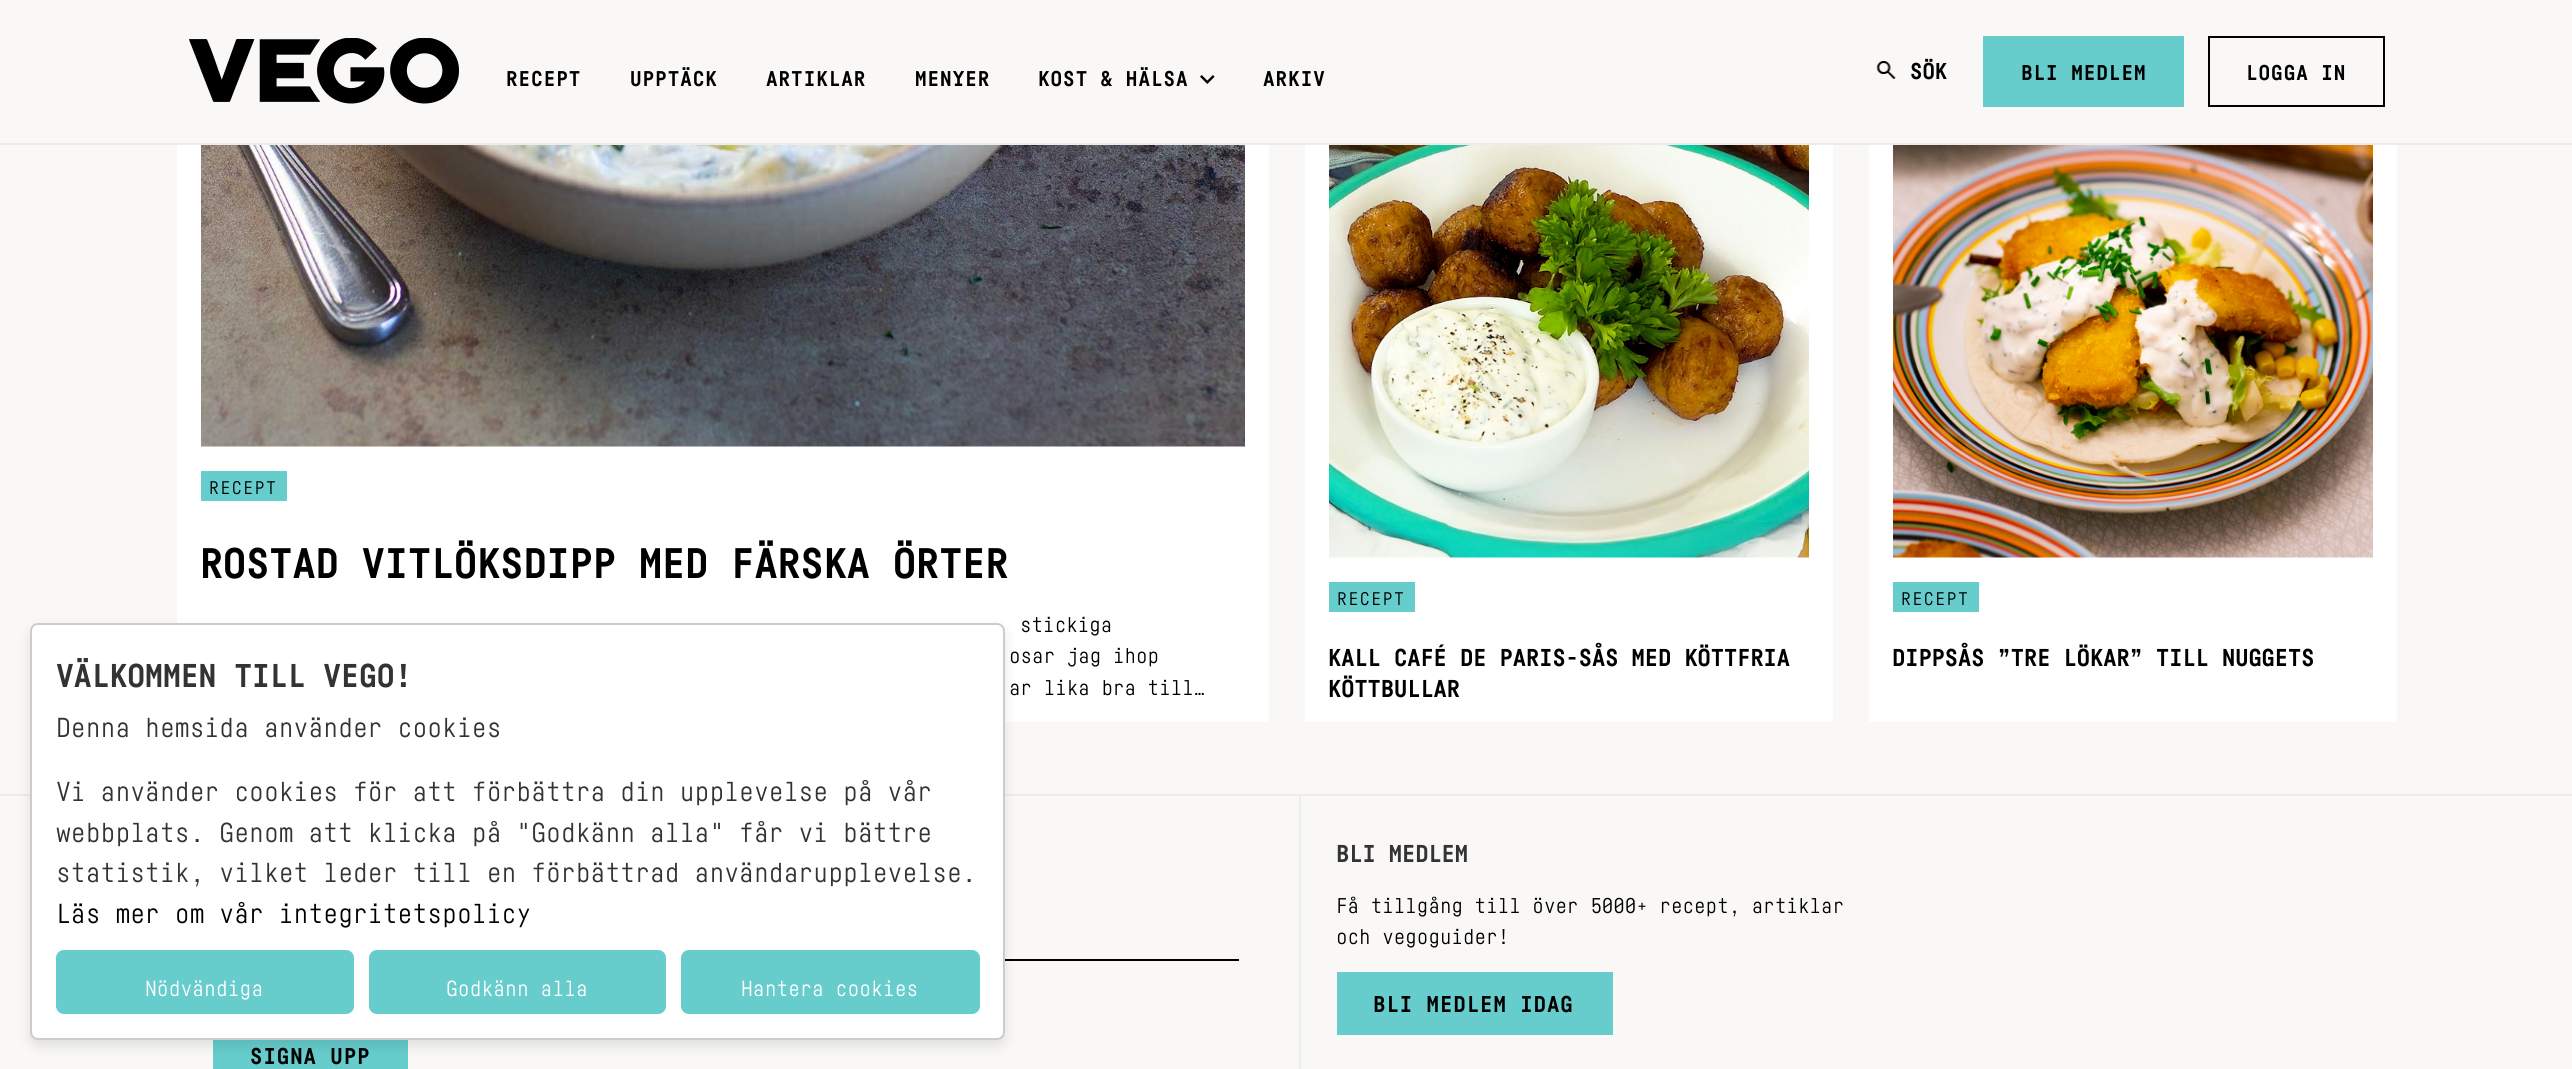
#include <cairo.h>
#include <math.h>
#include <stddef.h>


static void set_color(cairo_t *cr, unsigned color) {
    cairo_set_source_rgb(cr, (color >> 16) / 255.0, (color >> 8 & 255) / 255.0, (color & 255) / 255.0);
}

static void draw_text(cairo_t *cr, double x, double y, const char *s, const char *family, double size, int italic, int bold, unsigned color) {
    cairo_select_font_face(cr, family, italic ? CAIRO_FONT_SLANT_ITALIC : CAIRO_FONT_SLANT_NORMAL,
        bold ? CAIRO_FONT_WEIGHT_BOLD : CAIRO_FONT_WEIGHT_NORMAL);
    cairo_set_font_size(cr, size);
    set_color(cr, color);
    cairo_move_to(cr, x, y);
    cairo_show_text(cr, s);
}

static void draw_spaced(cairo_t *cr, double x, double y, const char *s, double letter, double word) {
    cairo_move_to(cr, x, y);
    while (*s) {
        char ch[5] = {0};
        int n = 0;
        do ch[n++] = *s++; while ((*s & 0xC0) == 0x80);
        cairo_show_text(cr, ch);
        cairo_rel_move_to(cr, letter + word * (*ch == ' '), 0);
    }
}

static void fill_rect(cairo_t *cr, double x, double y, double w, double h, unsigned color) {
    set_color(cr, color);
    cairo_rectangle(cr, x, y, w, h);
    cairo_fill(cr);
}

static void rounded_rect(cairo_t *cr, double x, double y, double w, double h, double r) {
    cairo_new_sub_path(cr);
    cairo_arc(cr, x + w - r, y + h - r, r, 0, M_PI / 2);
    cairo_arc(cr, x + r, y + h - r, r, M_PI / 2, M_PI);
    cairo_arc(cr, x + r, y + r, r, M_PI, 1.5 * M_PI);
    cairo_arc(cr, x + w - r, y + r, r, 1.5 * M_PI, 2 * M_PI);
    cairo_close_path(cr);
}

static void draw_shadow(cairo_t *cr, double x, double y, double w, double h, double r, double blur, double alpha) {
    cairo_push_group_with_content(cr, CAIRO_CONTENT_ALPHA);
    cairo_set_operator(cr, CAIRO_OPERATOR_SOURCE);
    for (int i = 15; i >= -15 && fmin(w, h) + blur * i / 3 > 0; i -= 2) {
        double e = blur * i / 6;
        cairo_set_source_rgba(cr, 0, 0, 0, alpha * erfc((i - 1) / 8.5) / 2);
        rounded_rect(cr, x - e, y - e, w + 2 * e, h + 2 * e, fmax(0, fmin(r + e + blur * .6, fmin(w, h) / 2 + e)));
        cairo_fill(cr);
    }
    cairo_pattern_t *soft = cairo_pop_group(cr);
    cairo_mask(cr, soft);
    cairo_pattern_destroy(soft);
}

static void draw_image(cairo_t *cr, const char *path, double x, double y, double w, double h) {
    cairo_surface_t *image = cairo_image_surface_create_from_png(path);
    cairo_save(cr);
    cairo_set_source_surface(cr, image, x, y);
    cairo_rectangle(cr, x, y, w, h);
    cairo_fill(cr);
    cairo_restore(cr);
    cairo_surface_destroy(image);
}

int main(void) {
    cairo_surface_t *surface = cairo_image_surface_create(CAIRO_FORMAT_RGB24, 2572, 1069);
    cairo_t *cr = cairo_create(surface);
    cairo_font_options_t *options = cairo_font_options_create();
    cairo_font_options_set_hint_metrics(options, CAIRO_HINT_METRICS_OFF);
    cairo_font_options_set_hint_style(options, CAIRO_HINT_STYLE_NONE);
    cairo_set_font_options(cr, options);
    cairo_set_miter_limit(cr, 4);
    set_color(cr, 0xF9F8F7);
    cairo_paint(cr);
    fill_rect(cr, 0, 143, 2572, 2, 0xECECEC);
    draw_image(cr, "assets/img1.png", 189, 38, 270, 66);
    cairo_select_font_face(cr, "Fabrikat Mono", CAIRO_FONT_SLANT_NORMAL, CAIRO_FONT_WEIGHT_BOLD);
    cairo_set_font_size(cr, 21);
    set_color(cr, 0x000000);
    draw_spaced(cr, 506, 86, "RECEPT", 1, 0);
    draw_spaced(cr, 630, 86, "UPPTÄCK", 1, 0);
    draw_spaced(cr, 766, 86, "ARTIKLAR", 1, 0);
    draw_spaced(cr, 915, 86, "MENYER", 1, 0);
    draw_spaced(cr, 1038, 86, "KOST & HÄLSA", 1, 0);
    draw_image(cr, "assets/img2.png", 1200, 75, 15, 9);
    draw_spaced(cr, 1263, 86, "ARKIV", 1, 0);
    draw_image(cr, "assets/img3.png", 1876, 61, 20, 19);
    draw_text(cr, 1910, 79, "SÖK", "Fabrikat Mono", 22.5, 0, 1, 0x000000);
    fill_rect(cr, 1983, 36, 201, 71, 0x66CCCC);
    cairo_set_font_size(cr, 21);
    set_color(cr, 0x000000);
    draw_spaced(cr, 2021, 80, "BLI MEDLEM", 1, 0);
    cairo_rectangle(cr, 2209, 37, 175, 69);
    cairo_stroke(cr);
    draw_spaced(cr, 2246, 80, "LOGGA IN", 1, 0);
    fill_rect(cr, 177, 145, 1092, 577, 0xFFFFFF);
    draw_image(cr, "assets/img4.png", 201, 145, 1044, 302);
    fill_rect(cr, 201, 471, 86, 30, 0x66CCCC);
    cairo_select_font_face(cr, "Fabrikat Mono", CAIRO_FONT_SLANT_NORMAL, CAIRO_FONT_WEIGHT_NORMAL);
    cairo_set_font_size(cr, 18);
    set_color(cr, 0x000000);
    draw_spaced(cr, 209, 494, "RECEPT", 1.5, 0);
    draw_text(cr, 200, 578, "ROSTAD VITLÖKSDIPP MED FÄRSKA ÖRTER", "Fabrikat Mono", 42, 0, 1, 0x000000);
    draw_text(cr, 1020, 632, "stickiga", "Fabrikat Mono", 21, 0, 0, 0x000000);
    draw_text(cr, 1009, 663, "osar jag ihop", "Fabrikat Mono", 21, 0, 0, 0x000000);
    draw_text(cr, 1009, 695, "ar lika bra till…", "Fabrikat Mono", 21, 0, 0, 0x000000);
    fill_rect(cr, 1305, 145, 528, 577, 0xFFFFFF);
    draw_image(cr, "assets/img5.png", 1329, 145, 480, 413);
    fill_rect(cr, 1329, 582, 86, 30, 0x66CCCC);
    cairo_set_font_size(cr, 18);
    set_color(cr, 0x000000);
    draw_spaced(cr, 1337, 605, "RECEPT", 1.5, 0);
    draw_text(cr, 1328, 666, "KALL CAFÉ DE PARIS-SÅS MED KÖTTFRIA", "Fabrikat Mono", 24, 0, 1, 0x000000);
    draw_text(cr, 1328, 697, "KÖTTBULLAR", "Fabrikat Mono", 24, 0, 1, 0x000000);
    fill_rect(cr, 1869, 145, 528, 577, 0xFFFFFF);
    draw_image(cr, "assets/img6.png", 1893, 145, 480, 413);
    fill_rect(cr, 1893, 582, 86, 30, 0x66CCCC);
    cairo_select_font_face(cr, "Fabrikat Mono", CAIRO_FONT_SLANT_NORMAL, CAIRO_FONT_WEIGHT_NORMAL);
    cairo_set_font_size(cr, 18);
    set_color(cr, 0x000000);
    draw_spaced(cr, 1901, 605, "RECEPT", 1.5, 0);
    draw_text(cr, 1892, 666, "DIPPSÅS ”TRE LÖKAR” TILL NUGGETS", "Fabrikat Mono", 24, 0, 1, 0x000000);
    fill_rect(cr, 0, 794, 2572, 2, 0xECECEC);
    fill_rect(cr, 1005, 959, 234, 2, 0x000000);
    fill_rect(cr, 213, 1040, 195, 29, 0x66CCCC);
    set_color(cr, 0x000000);
    draw_shadow(cr, 30, 629, 975, 417, 8, 6, 0.1);
    set_color(cr, 0xFFFFFF);
    rounded_rect(cr, 31, 624, 973, 415, 7);
    cairo_fill_preserve(cr);
    set_color(cr, 0xCCCCCC);
    cairo_stroke(cr);
    draw_text(cr, 56, 687, "VÄLKOMMEN TILL VEGO!", "Fabrikat Mono", 32.4, 0, 1, 0x333333);
    draw_text(cr, 56, 737, "Denna hemsida använder cookies", "Fabrikat Mono", 27, 0, 0, 0x333333);
    draw_text(cr, 56, 801, "Vi använder cookies för att förbättra din upplevelse på vår", "Fabrikat Mono", 27, 0, 0, 0x333333);
    draw_text(cr, 56, 842, "webbplats. Genom att klicka på \"Godkänn alla\" får vi bättre", "Fabrikat Mono", 27, 0, 0, 0x333333);
    draw_text(cr, 56, 882, "statistik, vilket leder till en förbättrad användarupplevelse.", "Fabrikat Mono", 27, 0, 0, 0x333333);
    draw_text(cr, 56, 923, "Läs mer om vår integritetspolicy", "Fabrikat Mono", 27, 0, 0, 0x000000);
    set_color(cr, 0x66CCCC);
    rounded_rect(cr, 56, 950, 298, 64, 8);
    cairo_fill(cr);
    draw_text(cr, 145, 996, "Nödvändiga", "Fabrikat Mono", 21.5, 0, 0, 0xFFFFFF);
    set_color(cr, 0x66CCCC);
    rounded_rect(cr, 369, 950, 297, 64, 8);
    cairo_fill(cr);
    draw_text(cr, 446, 996, "Godkänn alla", "Fabrikat Mono", 21.5, 0, 0, 0xFFFFFF);
    set_color(cr, 0x66CCCC);
    rounded_rect(cr, 681, 950, 299, 64, 8);
    cairo_fill(cr);
    draw_text(cr, 741, 996, "Hantera cookies", "Fabrikat Mono", 21.5, 0, 0, 0xFFFFFF);
    fill_rect(cr, 1299, 795, 2, 274, 0xECEFEF);
    draw_text(cr, 1336, 862, "BLI MEDLEM", "Fabrikat Mono", 24, 0, 1, 0x333333);
    draw_text(cr, 1336, 913, "Få tillgång till över 5000+ recept, artiklar", "Fabrikat Mono", 21, 0, 0, 0x000000);
    draw_text(cr, 1336, 944, "och vegoguider!", "Fabrikat Mono", 21, 0, 0, 0x000000);
    fill_rect(cr, 1337, 972, 276, 63, 0x66CCCC);
    cairo_select_font_face(cr, "Fabrikat Mono", CAIRO_FONT_SLANT_NORMAL, CAIRO_FONT_WEIGHT_BOLD);
    cairo_set_font_size(cr, 22.5);
    set_color(cr, 0x000000);
    draw_spaced(cr, 1373, 1012, "BLI MEDLEM IDAG", 1, 0);
    draw_spaced(cr, 250, 1064, "SIGNA UPP", 1, 0);
    cairo_surface_write_to_png(surface, "output.png");
    cairo_font_options_destroy(options);
    cairo_destroy(cr);
    cairo_surface_destroy(surface);
    return 0;
}
